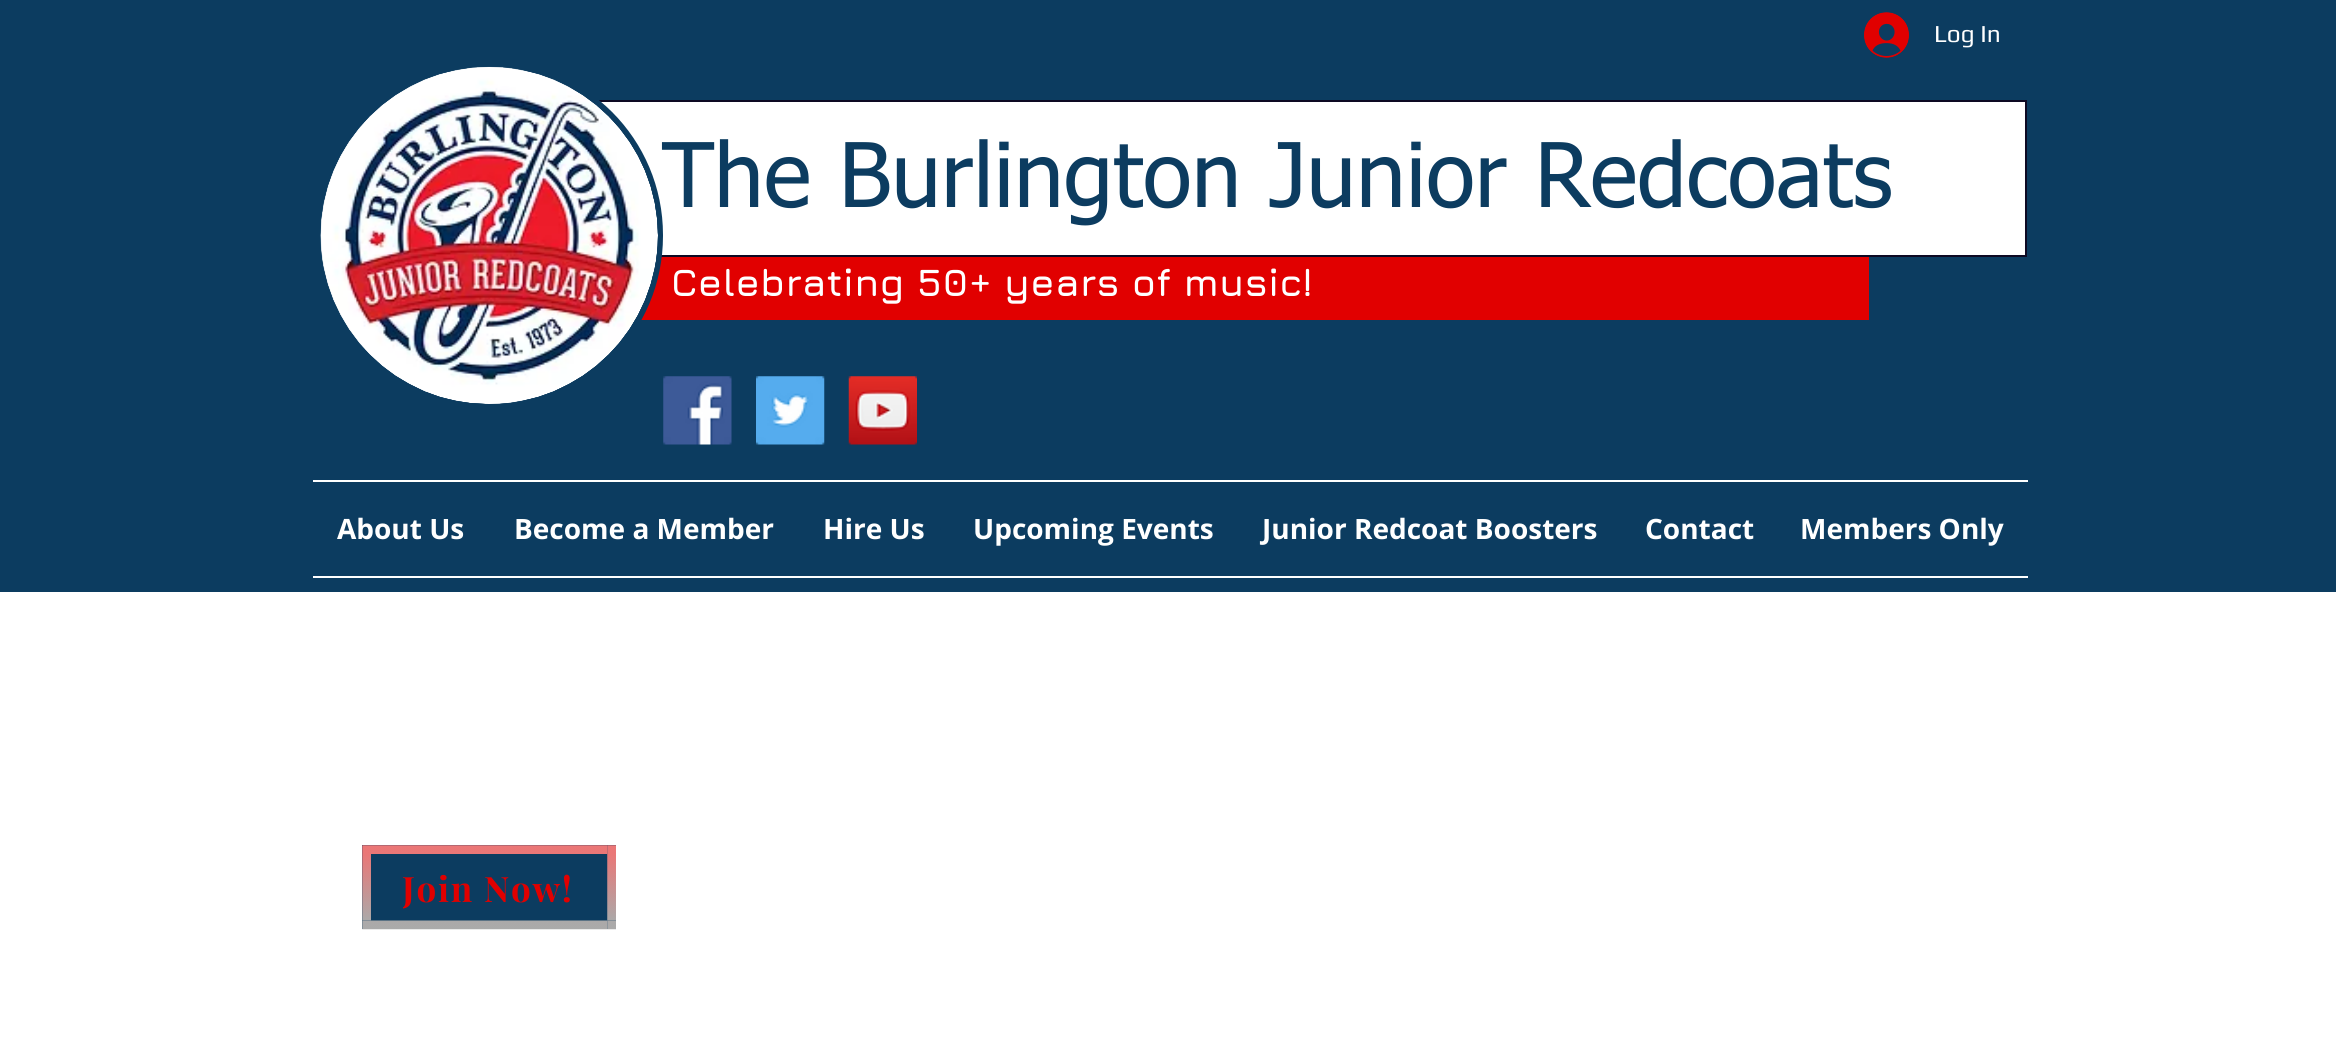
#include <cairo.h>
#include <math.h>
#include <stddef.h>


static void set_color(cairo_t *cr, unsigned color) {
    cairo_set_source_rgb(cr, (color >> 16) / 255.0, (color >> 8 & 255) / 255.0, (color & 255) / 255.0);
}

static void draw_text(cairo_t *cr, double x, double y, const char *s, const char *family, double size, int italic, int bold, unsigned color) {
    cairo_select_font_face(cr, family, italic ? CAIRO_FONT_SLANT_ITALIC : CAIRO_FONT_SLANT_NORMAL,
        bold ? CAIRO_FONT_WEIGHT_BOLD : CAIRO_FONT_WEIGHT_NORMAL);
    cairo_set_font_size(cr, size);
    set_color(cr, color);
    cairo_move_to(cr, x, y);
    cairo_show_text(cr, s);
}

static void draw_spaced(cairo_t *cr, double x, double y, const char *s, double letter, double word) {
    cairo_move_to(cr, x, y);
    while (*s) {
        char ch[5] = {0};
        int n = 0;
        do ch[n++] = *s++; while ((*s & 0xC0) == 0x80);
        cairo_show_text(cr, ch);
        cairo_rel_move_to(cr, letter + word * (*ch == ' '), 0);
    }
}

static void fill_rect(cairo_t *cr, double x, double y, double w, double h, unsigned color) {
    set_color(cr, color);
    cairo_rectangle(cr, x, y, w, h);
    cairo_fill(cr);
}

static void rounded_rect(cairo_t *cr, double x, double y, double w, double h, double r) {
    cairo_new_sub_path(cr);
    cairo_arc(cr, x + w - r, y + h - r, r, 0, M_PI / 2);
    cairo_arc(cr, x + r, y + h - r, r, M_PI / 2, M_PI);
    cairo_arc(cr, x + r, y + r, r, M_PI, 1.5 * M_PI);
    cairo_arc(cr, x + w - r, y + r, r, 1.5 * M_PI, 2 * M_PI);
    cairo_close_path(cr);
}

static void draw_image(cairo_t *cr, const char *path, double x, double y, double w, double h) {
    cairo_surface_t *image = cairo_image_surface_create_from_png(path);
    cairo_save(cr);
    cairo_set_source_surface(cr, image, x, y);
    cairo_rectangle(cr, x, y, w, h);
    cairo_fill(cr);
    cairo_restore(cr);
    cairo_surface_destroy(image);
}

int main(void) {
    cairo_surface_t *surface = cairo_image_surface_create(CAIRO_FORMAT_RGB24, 2336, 1058);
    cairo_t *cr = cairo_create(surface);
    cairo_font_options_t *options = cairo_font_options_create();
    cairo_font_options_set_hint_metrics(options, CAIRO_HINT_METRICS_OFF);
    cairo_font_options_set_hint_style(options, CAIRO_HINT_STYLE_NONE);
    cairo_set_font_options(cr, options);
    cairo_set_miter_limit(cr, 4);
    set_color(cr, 0xFFFFFF);
    cairo_paint(cr);
    fill_rect(cr, 0, 0, 2336, 592, 0x0C3C60);
    draw_image(cr, "assets/img1.png", 1864, 12, 45, 46);
    draw_text(cr, 1934, 42, "Log In", "Play", 24.5, 0, 0, 0xFFFFFF);
    fill_rect(cr, 601, 102, 1424, 153, 0xFFFFFF);
    cairo_rectangle(cr, 463, 101, 1563, 155);
    set_color(cr, 0x0D0923);
    cairo_stroke(cr);
    fill_rect(cr, 641, 257, 1228, 63, 0xE10000);
    set_color(cr, 0x0C3C60);
    rounded_rect(cr, 317.5, 63.5, 343, 344, 171.5);
    cairo_fill_preserve(cr);
    cairo_set_line_width(cr, 5);
    cairo_stroke(cr);
    draw_image(cr, "assets/img2.png", 320, 66, 338, 338);
    draw_text(cr, 662, 207, "The Burlington Junior Redcoats", "tahoma", 89.25, 0, 0, 0x0C3C60);
    draw_text(cr, 671, 296, "Celebrating 50+ years of music!", "Jura", 38.5, 0, 1, 0xFFFFFF);
    draw_image(cr, "assets/img3.png", 663, 376, 69, 69);
    draw_image(cr, "assets/img4.png", 756, 376, 69, 69);
    draw_image(cr, "assets/img5.png", 848, 376, 69, 69);
    fill_rect(cr, 313, 480, 1715, 2, 0xFFFFFF);
    fill_rect(cr, 313, 576, 1715, 2, 0xFFFFFF);
    draw_text(cr, 337, 539, "About Us", "Open Sans", 28, 0, 1, 0xFFFFFF);
    draw_text(cr, 514, 539, "Become a Member", "Open Sans", 28, 0, 1, 0xFFFFFF);
    draw_text(cr, 823, 539, "Hire Us", "Open Sans", 28, 0, 1, 0xFFFFFF);
    draw_text(cr, 973, 539, "Upcoming Events", "Open Sans", 28, 0, 1, 0xFFFFFF);
    draw_text(cr, 1262, 539, "Junior Redcoat Boosters", "Open Sans", 28, 0, 1, 0xFFFFFF);
    draw_text(cr, 1645, 539, "Contact", "Open Sans", 28, 0, 1, 0xFFFFFF);
    draw_text(cr, 1800, 539, "Members Only", "Open Sans", 28, 0, 1, 0xFFFFFF);
    fill_rect(cr, 362, 845, 254, 84, 0x0C3C60);
    draw_image(cr, "assets/img6.png", 362, 845, 254, 85);
    cairo_save(cr);
    cairo_rectangle(cr, 403, 865, 171, 47);
    cairo_clip(cr);
    cairo_select_font_face(cr, "Playfair Display", CAIRO_FONT_SLANT_NORMAL, CAIRO_FONT_WEIGHT_BOLD);
    cairo_set_font_size(cr, 35);
    set_color(cr, 0xE10000);
    draw_spaced(cr, 402, 902, "Join Now!", 1.75, 0);
    cairo_restore(cr);
    cairo_surface_write_to_png(surface, "output.png");
    cairo_font_options_destroy(options);
    cairo_destroy(cr);
    cairo_surface_destroy(surface);
    return 0;
}
